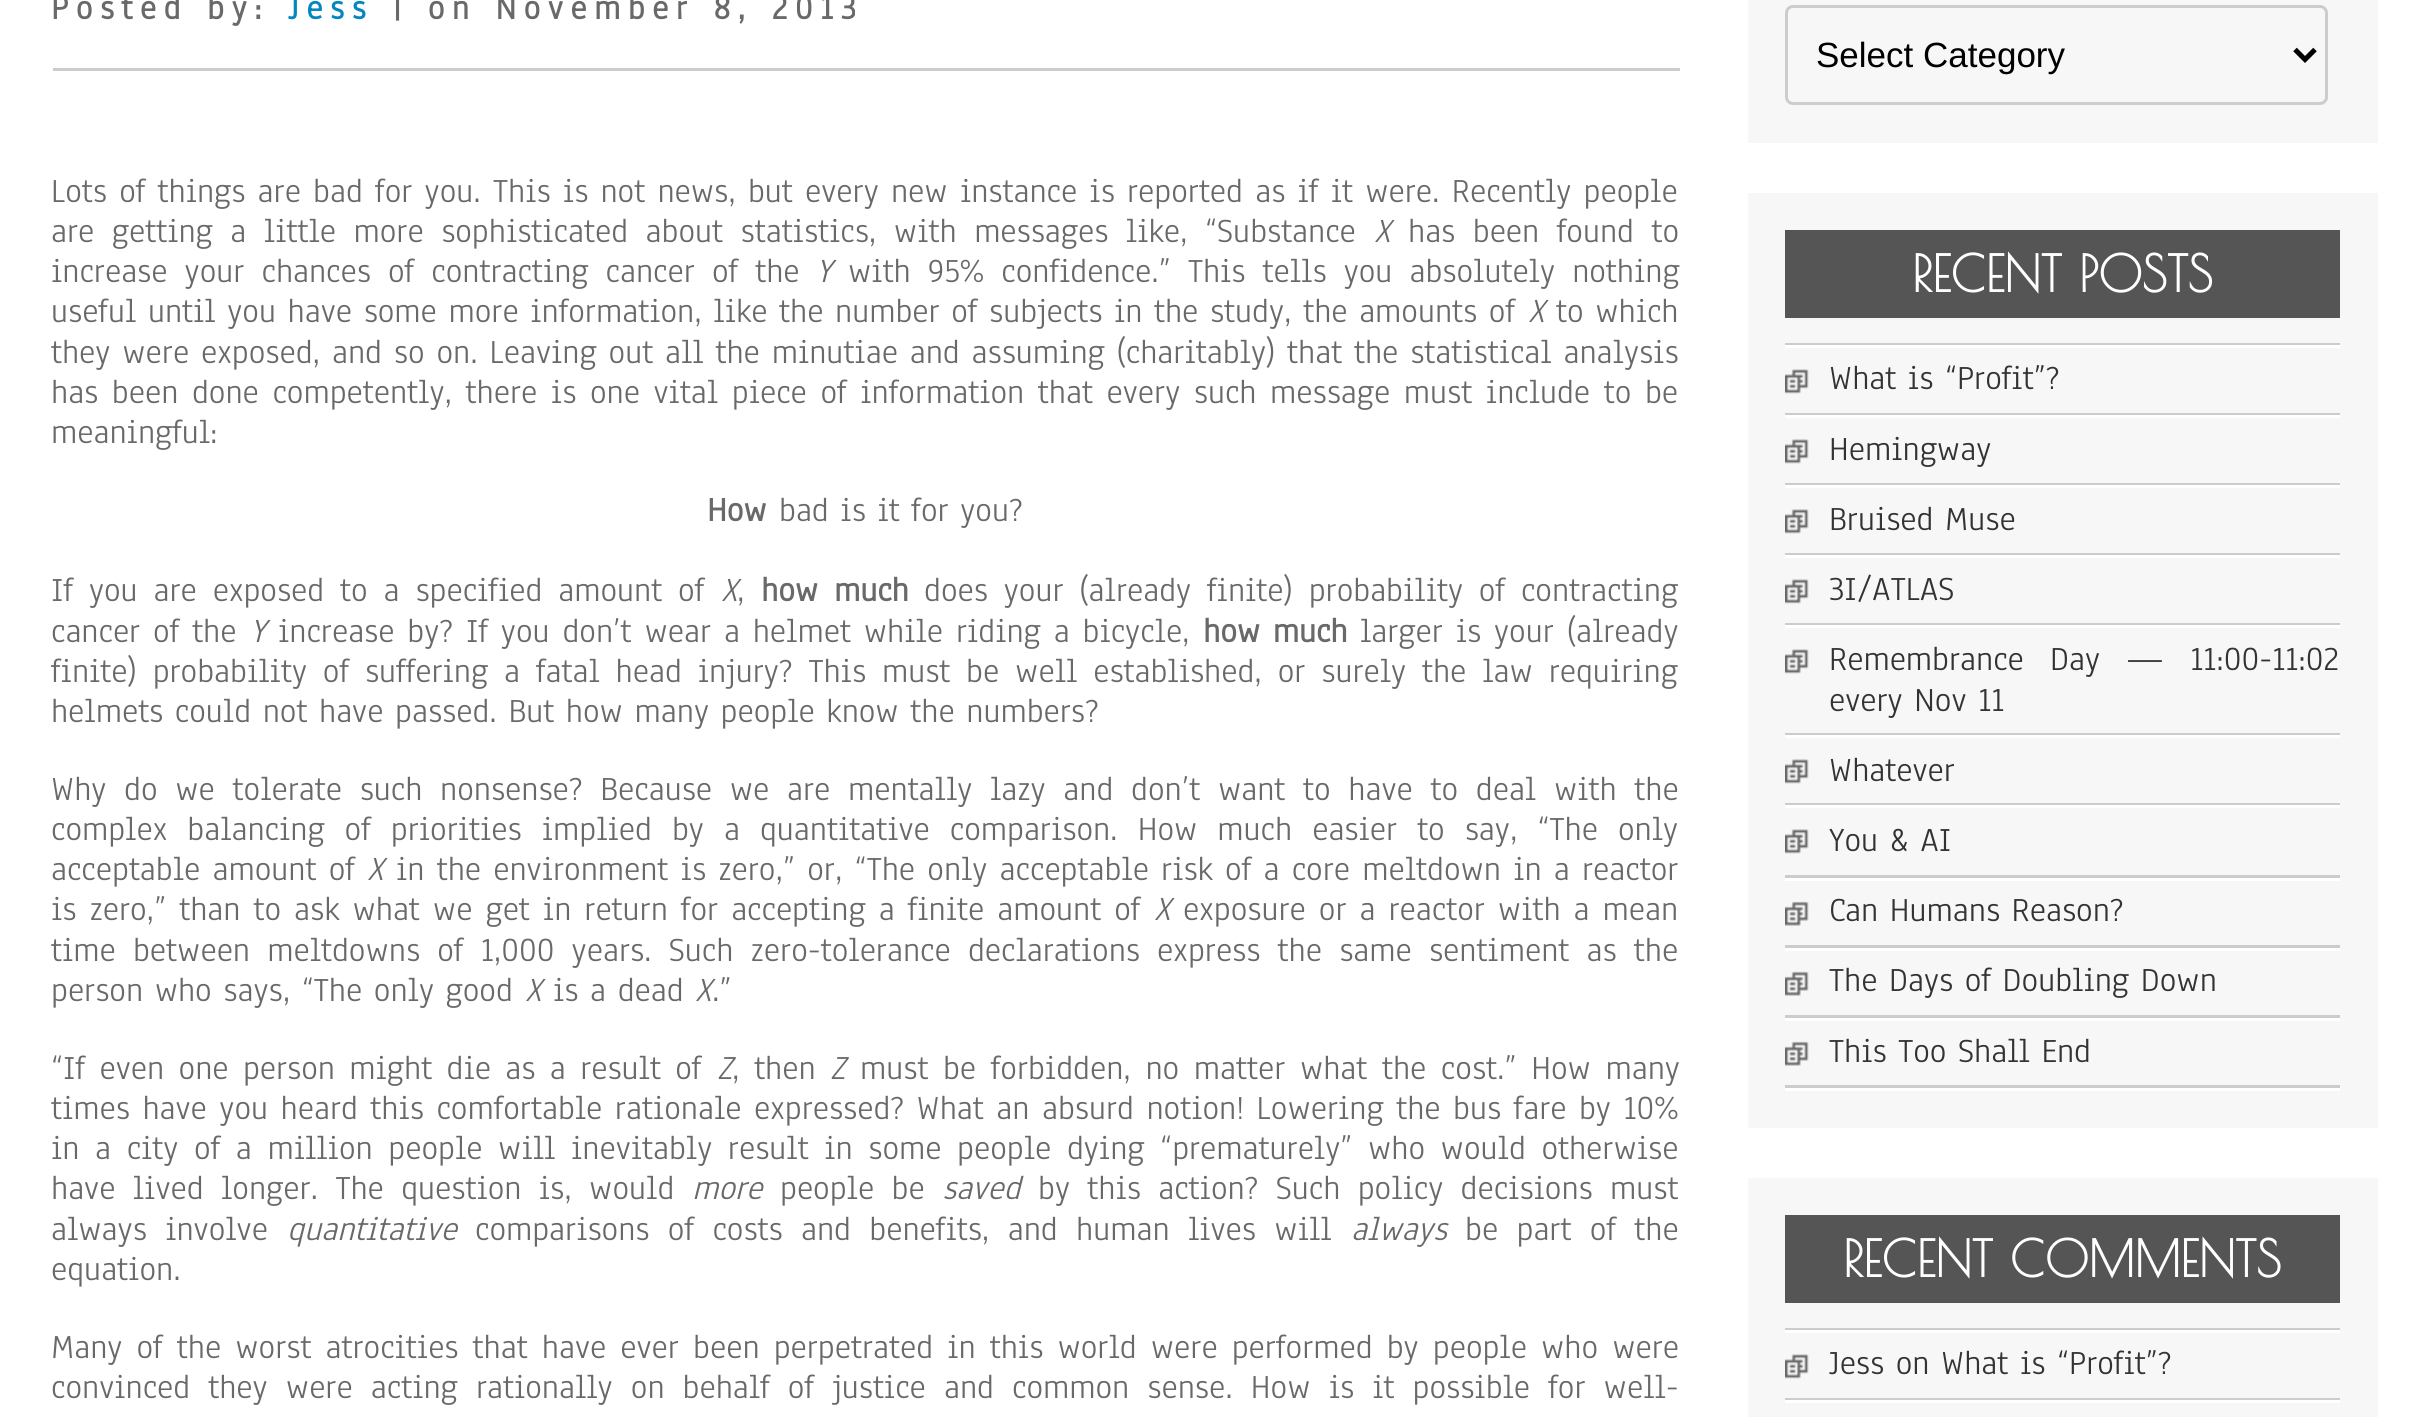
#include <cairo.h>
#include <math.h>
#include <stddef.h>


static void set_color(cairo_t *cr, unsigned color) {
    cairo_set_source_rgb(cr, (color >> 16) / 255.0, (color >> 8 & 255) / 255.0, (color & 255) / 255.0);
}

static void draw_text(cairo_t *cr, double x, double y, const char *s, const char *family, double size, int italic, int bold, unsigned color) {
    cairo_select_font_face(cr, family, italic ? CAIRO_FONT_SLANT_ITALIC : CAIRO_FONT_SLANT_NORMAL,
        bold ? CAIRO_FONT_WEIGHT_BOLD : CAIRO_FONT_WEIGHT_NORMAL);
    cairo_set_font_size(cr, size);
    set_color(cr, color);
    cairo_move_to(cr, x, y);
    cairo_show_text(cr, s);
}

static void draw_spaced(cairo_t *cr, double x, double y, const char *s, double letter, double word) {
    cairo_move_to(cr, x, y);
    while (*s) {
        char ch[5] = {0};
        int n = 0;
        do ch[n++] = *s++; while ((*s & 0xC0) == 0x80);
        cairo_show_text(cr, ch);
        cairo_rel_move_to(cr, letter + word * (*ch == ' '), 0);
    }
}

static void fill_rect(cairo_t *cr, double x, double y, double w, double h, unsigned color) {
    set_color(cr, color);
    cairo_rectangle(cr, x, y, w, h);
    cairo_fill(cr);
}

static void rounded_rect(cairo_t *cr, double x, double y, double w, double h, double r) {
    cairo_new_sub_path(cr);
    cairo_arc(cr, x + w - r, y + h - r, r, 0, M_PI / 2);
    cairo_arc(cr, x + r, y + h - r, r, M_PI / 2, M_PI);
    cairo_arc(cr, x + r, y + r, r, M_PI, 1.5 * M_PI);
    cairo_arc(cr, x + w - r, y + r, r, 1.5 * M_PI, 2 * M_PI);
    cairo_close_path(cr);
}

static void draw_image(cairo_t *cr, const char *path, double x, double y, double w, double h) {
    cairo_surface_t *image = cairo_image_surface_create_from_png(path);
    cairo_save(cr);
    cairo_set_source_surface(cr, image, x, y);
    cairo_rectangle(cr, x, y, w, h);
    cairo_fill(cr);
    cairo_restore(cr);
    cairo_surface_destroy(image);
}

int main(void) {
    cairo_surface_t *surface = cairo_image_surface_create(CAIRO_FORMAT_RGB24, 2427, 1417);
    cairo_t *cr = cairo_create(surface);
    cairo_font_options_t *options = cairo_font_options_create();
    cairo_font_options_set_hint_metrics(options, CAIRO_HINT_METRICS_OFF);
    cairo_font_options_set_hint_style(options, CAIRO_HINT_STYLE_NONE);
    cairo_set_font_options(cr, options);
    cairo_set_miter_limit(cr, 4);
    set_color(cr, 0xFFFFFF);
    cairo_paint(cr);
    cairo_select_font_face(cr, "Anaheim", CAIRO_FONT_SLANT_NORMAL, CAIRO_FONT_WEIGHT_BOLD);
    cairo_set_font_size(cr, 35);
    set_color(cr, 0x6A6969);
    draw_spaced(cr, 51, 19, "Posted by:", 7.5, 0);
    set_color(cr, 0x0387BF);
    draw_spaced(cr, 288, 19, "Jess", 7.5, 0);
    set_color(cr, 0x6A6969);
    draw_spaced(cr, 393, 19, "| on November 8, 2013", 7.5, 0);
    fill_rect(cr, 53, 68, 1627, 3, 0xCCCCCC);
    cairo_select_font_face(cr, "Anaheim", CAIRO_FONT_SLANT_NORMAL, CAIRO_FONT_WEIGHT_NORMAL);
    set_color(cr, 0x6A6969);
    draw_spaced(cr, 51, 202, "Lots of things are bad for you. This is not news, but every new instance is reported as if it were. Recently people", 0, 0.6);
    draw_spaced(cr, 51, 242, "are getting a little more sophisticated about statistics, with messages like, “Substance", 0, 5.9);
    draw_text(cr, 1374, 242, "X", "Anaheim", 35, 1, 0, 0x6A6969);
    cairo_select_font_face(cr, "Anaheim", CAIRO_FONT_SLANT_NORMAL, CAIRO_FONT_WEIGHT_NORMAL);
    draw_spaced(cr, 1408, 242, "has been found to", 0, 5.9);
    draw_spaced(cr, 51, 282, "increase your chances of contracting cancer of the", 0, 5.5);
    draw_text(cr, 816, 282, "Y", "Anaheim", 35, 1, 0, 0x6A6969);
    cairo_select_font_face(cr, "Anaheim", CAIRO_FONT_SLANT_NORMAL, CAIRO_FONT_WEIGHT_NORMAL);
    draw_spaced(cr, 848, 282, "with 95% confidence.” This tells you absolutely nothing", 0, 5.5);
    draw_text(cr, 51, 322, "useful until you have some more information, like the number of subjects in the study, the amounts of", "Anaheim", 35, 0, 0, 0x6A6969);
    draw_text(cr, 1528, 322, "X", "Anaheim", 35, 1, 0, 0x6A6969);
    draw_text(cr, 1556, 322, "to which", "Anaheim", 35, 0, 0, 0x6A6969);
    draw_spaced(cr, 51, 363, "they were exposed, and so on. Leaving out all the minutiae and assuming (charitably) that the statistical analysis", 0, 0.25);
    draw_spaced(cr, 51, 403, "has been done competently, there is one vital piece of information that every such message must include to be", 0, 2);
    draw_text(cr, 51, 443, "meaningful:", "Anaheim", 35, 0, 0, 0x6A6969);
    draw_text(cr, 707, 521, "How", "Anaheim", 35, 0, 1, 0x6A6969);
    draw_text(cr, 779, 521, "bad is it for you?", "Anaheim", 35, 0, 0, 0x6A6969);
    draw_spaced(cr, 51, 601, "If you are exposed to a specified amount of", 0, 4.25);
    draw_text(cr, 721, 601, "X", "Anaheim", 35, 1, 0, 0x6A6969);
    cairo_select_font_face(cr, "Anaheim", CAIRO_FONT_SLANT_NORMAL, CAIRO_FONT_WEIGHT_BOLD);
    draw_spaced(cr, 761, 601, "how much", 0, 4.25);
    cairo_select_font_face(cr, "Anaheim", CAIRO_FONT_SLANT_NORMAL, CAIRO_FONT_WEIGHT_NORMAL);
    draw_spaced(cr, 924, 601, "does your (already finite) probability of contracting", 0, 4.25);
    draw_text(cr, 737, 601, ",", "Anaheim", 35, 0, 0, 0x6A6969);
    draw_spaced(cr, 51, 642, "cancer of the", 0, 1.25);
    draw_text(cr, 250, 642, "Y", "Anaheim", 35, 1, 0, 0x6A6969);
    cairo_select_font_face(cr, "Anaheim", CAIRO_FONT_SLANT_NORMAL, CAIRO_FONT_WEIGHT_NORMAL);
    draw_spaced(cr, 278, 642, "increase by? If you don’t wear a helmet while riding a bicycle,", 0, 1.25);
    cairo_select_font_face(cr, "Anaheim", CAIRO_FONT_SLANT_NORMAL, CAIRO_FONT_WEIGHT_BOLD);
    draw_spaced(cr, 1203, 642, "how much", 0, 1);
    cairo_select_font_face(cr, "Anaheim", CAIRO_FONT_SLANT_NORMAL, CAIRO_FONT_WEIGHT_NORMAL);
    draw_spaced(cr, 1360, 642, "larger is your (already", 0, 1.25);
    draw_spaced(cr, 51, 682, "finite) probability of suffering a fatal head injury? This must be well established, or surely the law requiring", 0, 4.25);
    draw_text(cr, 51, 722, "helmets could not have passed. But how many people know the numbers?", "Anaheim", 35, 0, 0, 0x6A6969);
    draw_spaced(cr, 51, 800, "Why do we tolerate such nonsense? Because we are mentally lazy and don’t want to have to deal with the", 0, 6.1);
    draw_spaced(cr, 51, 840, "complex balancing of priorities implied by a quantitative comparison. How much easier to say, “The only", 0, 8.4);
    draw_spaced(cr, 51, 880, "acceptable amount of", 0, 0.6);
    draw_text(cr, 367, 880, "X", "Anaheim", 35, 1, 0, 0x6A6969);
    cairo_select_font_face(cr, "Anaheim", CAIRO_FONT_SLANT_NORMAL, CAIRO_FONT_WEIGHT_NORMAL);
    draw_spaced(cr, 396, 880, "in the environment is zero,” or, “The only acceptable risk of a core meltdown in a reactor", 0, 0.6);
    draw_spaced(cr, 51, 920, "is zero,” than to ask what we get in return for accepting a finite amount of", 0, 1.4);
    draw_text(cr, 1154, 920, "X", "Anaheim", 35, 1, 0, 0x6A6969);
    cairo_select_font_face(cr, "Anaheim", CAIRO_FONT_SLANT_NORMAL, CAIRO_FONT_WEIGHT_NORMAL);
    draw_spaced(cr, 1183, 920, "exposure or a reactor with a mean", 0, 1.4);
    draw_spaced(cr, 51, 961, "time between meltdowns of 1,000 years. Such zero-tolerance declarations express the same sentiment as the", 0, 5.6);
    draw_text(cr, 51, 1001, "person who says, “The only good", "Anaheim", 35, 0, 0, 0x6A6969);
    draw_text(cr, 525, 1001, "X", "Anaheim", 35, 1, 0, 0x6A6969);
    draw_text(cr, 553, 1001, "is a dead", "Anaheim", 35, 0, 0, 0x6A6969);
    draw_text(cr, 695, 1001, "X", "Anaheim", 35, 1, 0, 0x6A6969);
    draw_text(cr, 712, 1001, ".”", "Anaheim", 35, 0, 0, 0x6A6969);
    draw_spaced(cr, 51, 1079, "“If even one person might die as a result of", 0, 2.75);
    draw_text(cr, 717, 1079, "Z", "Anaheim", 35, 1, 0, 0x6A6969);
    cairo_select_font_face(cr, "Anaheim", CAIRO_FONT_SLANT_NORMAL, CAIRO_FONT_WEIGHT_NORMAL);
    draw_spaced(cr, 732, 1079, ", then", 0, 3);
    draw_text(cr, 830, 1079, "Z", "Anaheim", 35, 1, 0, 0x6A6969);
    cairo_select_font_face(cr, "Anaheim", CAIRO_FONT_SLANT_NORMAL, CAIRO_FONT_WEIGHT_NORMAL);
    draw_spaced(cr, 860, 1079, "must be forbidden, no matter what the cost.” How many", 0, 3);
    draw_spaced(cr, 51, 1119, "times have you heard this comfortable rationale expressed? What an absurd notion! Lowering the bus fare by 10%", 0, 0.9);
    draw_spaced(cr, 51, 1159, "in a city of a million people will inevitably result in some people dying “prematurely” who would otherwise", 0, 4);
    draw_spaced(cr, 51, 1199, "have lived longer. The question is, would", 0, 5.75);
    draw_text(cr, 692, 1199, "more", "Anaheim", 35, 1, 0, 0x6A6969);
    cairo_select_font_face(cr, "Anaheim", CAIRO_FONT_SLANT_NORMAL, CAIRO_FONT_WEIGHT_NORMAL);
    draw_spaced(cr, 780, 1199, "people be", 0, 5.75);
    draw_text(cr, 942, 1199, "saved", "Anaheim", 35, 1, 0, 0x6A6969);
    cairo_select_font_face(cr, "Anaheim", CAIRO_FONT_SLANT_NORMAL, CAIRO_FONT_WEIGHT_NORMAL);
    draw_spaced(cr, 1038, 1199, "by this action? Such policy decisions must", 0, 5.75);
    draw_spaced(cr, 51, 1240, "always involve", 0, 6.75);
    draw_text(cr, 287, 1240, "quantitative", "Anaheim", 35, 1, 0, 0x6A6969);
    cairo_select_font_face(cr, "Anaheim", CAIRO_FONT_SLANT_NORMAL, CAIRO_FONT_WEIGHT_NORMAL);
    draw_spaced(cr, 475, 1240, "comparisons of costs and benefits, and human lives will", 0, 6.75);
    draw_text(cr, 1351, 1240, "always", "Anaheim", 35, 1, 0, 0x6A6969);
    cairo_select_font_face(cr, "Anaheim", CAIRO_FONT_SLANT_NORMAL, CAIRO_FONT_WEIGHT_NORMAL);
    draw_spaced(cr, 1465, 1240, "be part of the", 0, 6.75);
    draw_text(cr, 51, 1280, "equation.", "Anaheim", 35, 0, 0, 0x6A6969);
    draw_spaced(cr, 51, 1358, "Many of the worst atrocities that have ever been perpetrated in this world were performed by people who were", 0, 2.5);
    draw_spaced(cr, 51, 1398, "convinced they were acting rationally on behalf of justice and common sense. How is it possible for well-", 0, 6.5);
    fill_rect(cr, 1748, 0, 630, 143, 0xF7F7F7);
    rounded_rect(cr, 1786.5, 6.5, 540, 97, 6.5);
    set_color(cr, 0xCCCCCC);
    cairo_set_line_width(cr, 3);
    cairo_stroke(cr);
    cairo_new_path(cr);
    cairo_move_to(cr, 2295, 49.5);
    cairo_line_to(cr, 2305, 59.5);
    cairo_line_to(cr, 2315, 49.5);
    set_color(cr, 0x000000);
    cairo_set_line_width(cr, 5);
    cairo_stroke(cr);
    draw_text(cr, 1816, 67, "Select Category", "Liberation Sans", 35, 0, 0, 0x000000);
    fill_rect(cr, 1748, 193, 630, 935, 0xF7F7F7);
    fill_rect(cr, 1785, 230, 555, 88, 0x555555);
    draw_text(cr, 1912, 292, "RECENT POSTS", "Poiret One", 50, 0, 1, 0xFFFFFF);
    fill_rect(cr, 1785, 343, 555, 2, 0xCCCCCC);
    fill_rect(cr, 1785, 1088, 555, 3, 0xFFFFFF);
    draw_image(cr, "assets/img1.png", 1785, 369, 24, 25);
    fill_rect(cr, 1785, 345, 555, 3, 0xFFFFFF);
    fill_rect(cr, 1785, 413, 555, 2, 0xCCCCCC);
    draw_text(cr, 1829, 389, "What is “Profit”?", "Anaheim", 35, 0, 0, 0x333333);
    draw_image(cr, "assets/img1.png", 1785, 439, 24, 25);
    fill_rect(cr, 1785, 415, 555, 3, 0xFFFFFF);
    fill_rect(cr, 1785, 483, 555, 2, 0xCCCCCC);
    draw_text(cr, 1829, 460, "Hemingway", "Anaheim", 35, 0, 0, 0x333333);
    draw_image(cr, "assets/img1.png", 1785, 509, 24, 25);
    fill_rect(cr, 1785, 485, 555, 3, 0xFFFFFF);
    fill_rect(cr, 1785, 553, 555, 2, 0xCCCCCC);
    draw_text(cr, 1829, 530, "Bruised Muse", "Anaheim", 35, 0, 0, 0x333333);
    draw_image(cr, "assets/img1.png", 1785, 579, 24, 25);
    fill_rect(cr, 1785, 555, 555, 3, 0xFFFFFF);
    fill_rect(cr, 1785, 623, 555, 2, 0xCCCCCC);
    draw_text(cr, 1829, 600, "3I/ATLAS", "Anaheim", 35, 0, 0, 0x333333);
    draw_image(cr, "assets/img1.png", 1785, 649, 24, 25);
    fill_rect(cr, 1785, 625, 555, 3, 0xFFFFFF);
    fill_rect(cr, 1785, 733, 555, 2, 0xCCCCCC);
    set_color(cr, 0x333333);
    draw_spaced(cr, 1829, 670, "Remembrance Day — 11:00-11:02", 0, 14.5);
    draw_text(cr, 1829, 711, "every Nov 11", "Anaheim", 35, 0, 0, 0x333333);
    draw_image(cr, "assets/img1.png", 1785, 759, 24, 25);
    fill_rect(cr, 1785, 735, 555, 3, 0xFFFFFF);
    fill_rect(cr, 1785, 803, 555, 2, 0xCCCCCC);
    draw_text(cr, 1829, 781, "Whatever", "Anaheim", 35, 0, 0, 0x333333);
    draw_image(cr, "assets/img1.png", 1785, 829, 24, 25);
    fill_rect(cr, 1785, 805, 555, 3, 0xFFFFFF);
    fill_rect(cr, 1785, 875, 555, 3, 0xCCCCCC);
    draw_text(cr, 1829, 851, "You & AI", "Anaheim", 35, 0, 0, 0x333333);
    draw_image(cr, "assets/img2.png", 1785, 901, 24, 25);
    fill_rect(cr, 1785, 878, 555, 3, 0xFFFFFF);
    fill_rect(cr, 1785, 945, 555, 3, 0xCCCCCC);
    draw_text(cr, 1829, 921, "Can Humans Reason?", "Anaheim", 35, 0, 0, 0x333333);
    draw_image(cr, "assets/img2.png", 1785, 971, 24, 25);
    fill_rect(cr, 1785, 948, 555, 3, 0xFFFFFF);
    fill_rect(cr, 1785, 1015, 555, 3, 0xCCCCCC);
    draw_text(cr, 1829, 991, "The Days of Doubling Down", "Anaheim", 35, 0, 0, 0x333333);
    draw_image(cr, "assets/img2.png", 1785, 1041, 24, 25);
    fill_rect(cr, 1785, 1018, 555, 3, 0xFFFFFF);
    fill_rect(cr, 1785, 1085, 555, 3, 0xCCCCCC);
    draw_text(cr, 1829, 1062, "This Too Shall End", "Anaheim", 35, 0, 0, 0x333333);
    fill_rect(cr, 1748, 1178, 630, 239, 0xF7F7F7);
    fill_rect(cr, 1785, 1215, 555, 88, 0x555555);
    draw_text(cr, 1843, 1277, "RECENT COMMENTS", "Poiret One", 50, 0, 1, 0xFFFFFF);
    fill_rect(cr, 1785, 1328, 555, 2, 0xCCCCCC);
    draw_image(cr, "assets/img1.png", 1785, 1354, 24, 25);
    fill_rect(cr, 1785, 1330, 555, 3, 0xFFFFFF);
    fill_rect(cr, 1785, 1398, 555, 2, 0xCCCCCC);
    draw_text(cr, 1829, 1374, "Jess on What is “Profit”?", "Anaheim", 35, 0, 0, 0x333333);
    fill_rect(cr, 1785, 1400, 555, 3, 0xFFFFFF);
    cairo_surface_write_to_png(surface, "output.png");
    cairo_font_options_destroy(options);
    cairo_destroy(cr);
    cairo_surface_destroy(surface);
    return 0;
}
